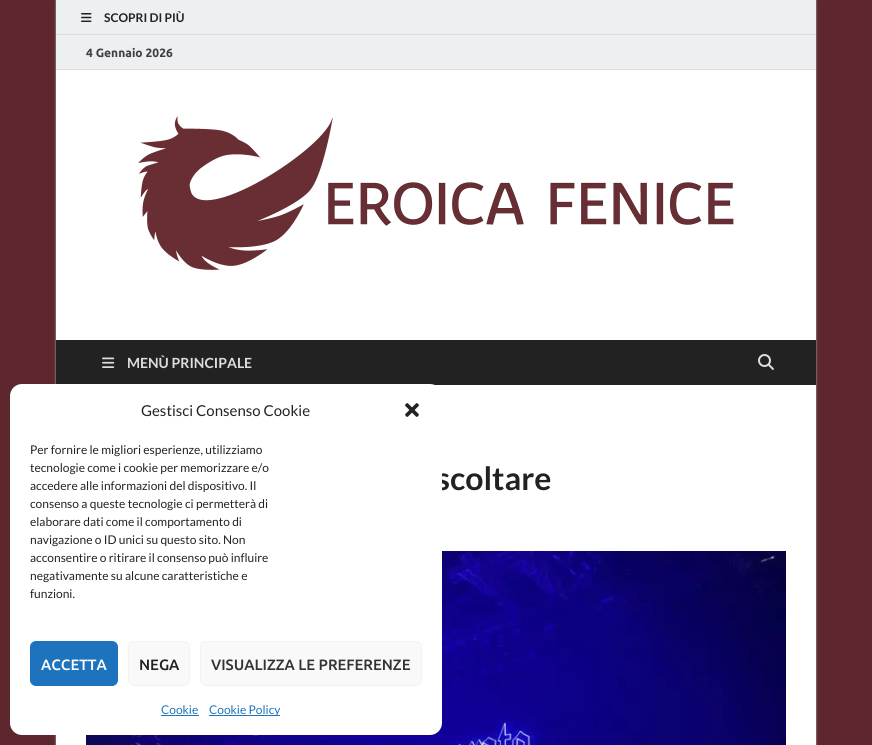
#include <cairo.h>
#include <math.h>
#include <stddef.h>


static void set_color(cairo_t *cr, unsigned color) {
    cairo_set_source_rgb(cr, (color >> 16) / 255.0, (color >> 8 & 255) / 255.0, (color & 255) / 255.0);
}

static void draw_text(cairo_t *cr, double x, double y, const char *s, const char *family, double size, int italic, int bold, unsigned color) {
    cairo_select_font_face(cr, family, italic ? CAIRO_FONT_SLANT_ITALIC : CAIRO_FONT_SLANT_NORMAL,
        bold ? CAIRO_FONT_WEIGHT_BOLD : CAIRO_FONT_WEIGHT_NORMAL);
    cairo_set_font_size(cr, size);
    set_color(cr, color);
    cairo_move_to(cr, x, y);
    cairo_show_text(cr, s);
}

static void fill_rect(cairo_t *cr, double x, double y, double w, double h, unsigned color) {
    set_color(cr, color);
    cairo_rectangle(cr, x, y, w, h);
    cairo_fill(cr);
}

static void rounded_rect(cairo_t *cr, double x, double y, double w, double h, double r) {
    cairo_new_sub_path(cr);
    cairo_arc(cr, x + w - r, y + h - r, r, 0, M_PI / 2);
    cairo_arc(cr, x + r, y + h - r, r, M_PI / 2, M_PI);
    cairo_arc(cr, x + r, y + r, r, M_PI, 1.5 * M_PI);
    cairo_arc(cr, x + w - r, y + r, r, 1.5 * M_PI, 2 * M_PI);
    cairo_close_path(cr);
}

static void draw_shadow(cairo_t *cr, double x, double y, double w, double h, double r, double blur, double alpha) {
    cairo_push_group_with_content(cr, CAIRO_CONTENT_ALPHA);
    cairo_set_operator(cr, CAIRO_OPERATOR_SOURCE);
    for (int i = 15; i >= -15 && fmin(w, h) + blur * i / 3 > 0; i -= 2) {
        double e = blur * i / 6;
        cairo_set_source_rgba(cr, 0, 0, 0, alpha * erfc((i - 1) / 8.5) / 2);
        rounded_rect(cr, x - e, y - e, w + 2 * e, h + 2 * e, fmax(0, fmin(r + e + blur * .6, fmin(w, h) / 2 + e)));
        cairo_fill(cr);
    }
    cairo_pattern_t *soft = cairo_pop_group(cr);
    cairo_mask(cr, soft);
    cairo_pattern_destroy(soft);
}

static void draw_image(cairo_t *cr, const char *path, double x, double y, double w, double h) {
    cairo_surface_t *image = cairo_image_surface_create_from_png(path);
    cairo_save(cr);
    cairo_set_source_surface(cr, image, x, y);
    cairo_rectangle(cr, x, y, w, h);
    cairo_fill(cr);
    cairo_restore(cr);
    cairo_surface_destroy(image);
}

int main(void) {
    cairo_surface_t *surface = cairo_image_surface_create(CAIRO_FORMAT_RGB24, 872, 745);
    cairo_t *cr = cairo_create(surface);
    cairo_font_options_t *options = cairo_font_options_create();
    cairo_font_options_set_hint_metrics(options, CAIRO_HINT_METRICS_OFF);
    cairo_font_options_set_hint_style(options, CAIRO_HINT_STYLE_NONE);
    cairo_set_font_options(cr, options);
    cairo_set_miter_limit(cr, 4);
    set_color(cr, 0x5D272D);
    cairo_paint(cr);
    set_color(cr, 0xBBBBBB);
    draw_shadow(cr, 56, 0, 760, 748, 0, 1, 1);
    fill_rect(cr, 56, 70, 760, 675, 0xFFFFFF);
    fill_rect(cr, 56, 0, 760, 34, 0xECF0F1);
    fill_rect(cr, 56, 34, 760, 1, 0xDDDDDD);
    draw_image(cr, "assets/img1.png", 81, 13, 11, 9);
    draw_text(cr, 104, 22, "SCOPRI DI PIÙ", "Lato", 12, 0, 1, 0x222222);
    fill_rect(cr, 56, 35, 760, 34, 0xECF0F1);
    fill_rect(cr, 56, 69, 760, 1, 0xDDDDDD);
    draw_text(cr, 86, 57, "4 Gennaio 2026", "Ubuntu", 12, 0, 1, 0x404040);
    draw_image(cr, "assets/img2.png", 138, 116, 596, 154);
    fill_rect(cr, 56, 340, 760, 45, 0x222222);
    draw_image(cr, "assets/img3.png", 102, 357, 13, 11);
    draw_text(cr, 127, 368, "MENÙ PRINCIPALE", "Lato", 14, 0, 1, 0xDDDDDD);
    draw_image(cr, "assets/img4.png", 758, 354, 16, 16);
    draw_text(cr, 436, 490, "scoltare", "Lato", 32, 0, 1, 0x222222);
    draw_image(cr, "assets/img5.png", 86, 551, 700, 194);
    set_color(cr, 0xFFFFFF);
    rounded_rect(cr, 10, 384, 432, 351, 12);
    cairo_fill(cr);
    draw_text(cr, 141, 416, "Gestisci Consenso Cookie", "Lato", 15, 0, 0, 0x222222);
    draw_image(cr, "assets/img6.png", 405, 403, 14, 14);
    draw_text(cr, 30, 454, "Per fornire le migliori esperienze, utilizziamo", "Lato", 12, 0, 0, 0x222222);
    draw_text(cr, 30, 472, "tecnologie come i cookie per memorizzare e/o", "Lato", 12, 0, 0, 0x222222);
    draw_text(cr, 30, 490, "accedere alle informazioni del dispositivo. Il", "Lato", 12, 0, 0, 0x222222);
    draw_text(cr, 30, 508, "consenso a queste tecnologie ci permetterà di", "Lato", 12, 0, 0, 0x222222);
    draw_text(cr, 30, 526, "elaborare dati come il comportamento di", "Lato", 12, 0, 0, 0x222222);
    draw_text(cr, 30, 544, "navigazione o ID unici su questo sito. Non", "Lato", 12, 0, 0, 0x222222);
    draw_text(cr, 30, 562, "acconsentire o ritirare il consenso può influire", "Lato", 12, 0, 0, 0x222222);
    draw_text(cr, 30, 580, "negativamente su alcune caratteristiche e", "Lato", 12, 0, 0, 0x222222);
    draw_text(cr, 30, 598, "funzioni.", "Lato", 12, 0, 0, 0x222222);
    set_color(cr, 0x1E73BE);
    rounded_rect(cr, 30.5, 641.5, 87, 44, 5.5);
    cairo_fill_preserve(cr);
    cairo_set_line_width(cr, 1);
    cairo_stroke(cr);
    draw_text(cr, 41, 670, "ACCETTA", "Ubuntu Medium", 15, 0, 0, 0xFFFFFF);
    set_color(cr, 0xF9F9F9);
    rounded_rect(cr, 128.5, 641.5, 61, 44, 5.5);
    cairo_fill_preserve(cr);
    set_color(cr, 0xF2F2F2);
    cairo_stroke(cr);
    draw_text(cr, 139, 670, "NEGA", "Ubuntu Medium", 15, 0, 0, 0x222222);
    set_color(cr, 0xF9F9F9);
    rounded_rect(cr, 200.5, 641.5, 221, 44, 5.5);
    cairo_fill_preserve(cr);
    set_color(cr, 0xF2F2F2);
    cairo_stroke(cr);
    draw_text(cr, 211, 670, "VISUALIZZA LE PREFERENZE", "Ubuntu Medium", 15, 0, 0, 0x333333);
    draw_text(cr, 161, 714, "Cookie", "Lato", 12, 0, 0, 0x1E73BE);
    fill_rect(cr, 161, 715, 38, 1, 0x1E73BE);
    fill_rect(cr, 209, 715, 71, 1, 0x1E73BE);
    draw_text(cr, 209, 714, "Cookie Policy", "Lato", 12, 0, 0, 0x1E73BE);
    cairo_surface_write_to_png(surface, "output.png");
    cairo_font_options_destroy(options);
    cairo_destroy(cr);
    cairo_surface_destroy(surface);
    return 0;
}
